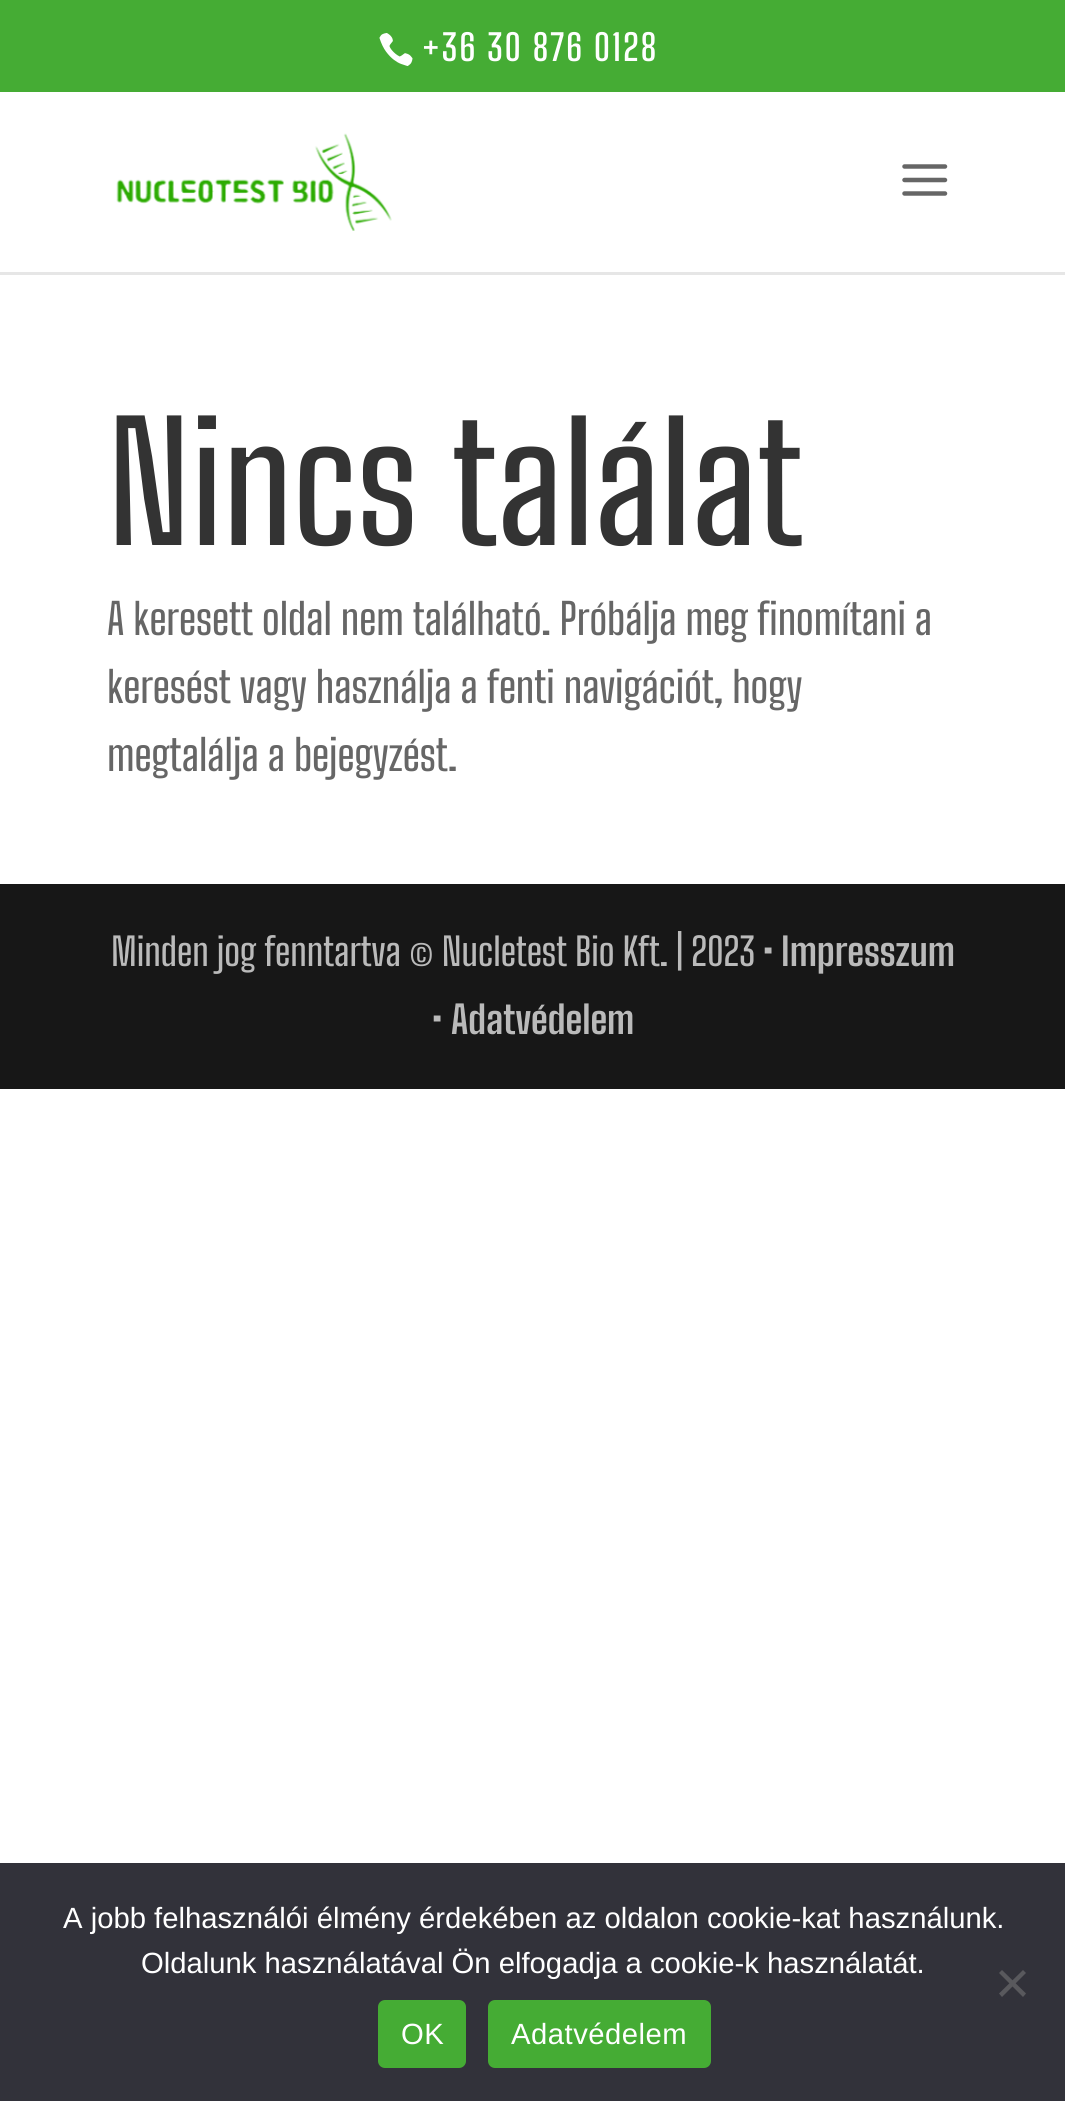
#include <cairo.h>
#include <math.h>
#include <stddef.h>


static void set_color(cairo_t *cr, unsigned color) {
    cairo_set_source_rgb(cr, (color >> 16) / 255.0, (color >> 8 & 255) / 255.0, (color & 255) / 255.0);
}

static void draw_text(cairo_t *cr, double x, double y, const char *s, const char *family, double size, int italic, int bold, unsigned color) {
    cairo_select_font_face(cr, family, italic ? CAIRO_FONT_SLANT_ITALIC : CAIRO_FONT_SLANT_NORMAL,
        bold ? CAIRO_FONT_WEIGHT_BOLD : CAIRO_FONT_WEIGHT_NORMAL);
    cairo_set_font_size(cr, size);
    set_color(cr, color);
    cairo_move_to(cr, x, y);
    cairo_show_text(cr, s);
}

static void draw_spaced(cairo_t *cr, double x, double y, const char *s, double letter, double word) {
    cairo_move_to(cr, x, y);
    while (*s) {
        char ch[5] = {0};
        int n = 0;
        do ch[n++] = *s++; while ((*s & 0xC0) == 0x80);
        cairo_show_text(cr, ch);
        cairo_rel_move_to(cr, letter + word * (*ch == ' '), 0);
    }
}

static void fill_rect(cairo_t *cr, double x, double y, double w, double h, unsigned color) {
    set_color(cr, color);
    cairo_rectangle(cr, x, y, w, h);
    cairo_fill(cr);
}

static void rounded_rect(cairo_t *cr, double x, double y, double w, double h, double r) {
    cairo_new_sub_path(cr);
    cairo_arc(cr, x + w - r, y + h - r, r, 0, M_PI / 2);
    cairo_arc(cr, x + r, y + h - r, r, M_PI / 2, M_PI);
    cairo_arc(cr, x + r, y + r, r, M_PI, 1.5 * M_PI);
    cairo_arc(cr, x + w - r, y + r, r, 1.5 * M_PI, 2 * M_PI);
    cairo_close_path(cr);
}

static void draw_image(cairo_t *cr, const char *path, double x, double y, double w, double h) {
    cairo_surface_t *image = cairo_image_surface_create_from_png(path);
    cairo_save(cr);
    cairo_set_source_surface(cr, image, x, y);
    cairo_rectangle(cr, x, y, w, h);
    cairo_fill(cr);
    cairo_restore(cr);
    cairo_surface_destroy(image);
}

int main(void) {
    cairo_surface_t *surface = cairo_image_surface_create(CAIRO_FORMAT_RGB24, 1065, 2101);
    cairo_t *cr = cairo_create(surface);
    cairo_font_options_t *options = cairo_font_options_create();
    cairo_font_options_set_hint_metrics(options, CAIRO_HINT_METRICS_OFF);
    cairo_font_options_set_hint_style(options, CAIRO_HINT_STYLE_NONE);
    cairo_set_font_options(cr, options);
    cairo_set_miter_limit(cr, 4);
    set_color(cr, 0xFFFFFF);
    cairo_paint(cr);
    fill_rect(cr, 0, 0, 1065, 92, 0x45AC34);
    draw_image(cr, "assets/img1.png", 379, 33, 34, 33);
    cairo_select_font_face(cr, "Big Shoulders Text SemiBold", CAIRO_FONT_SLANT_NORMAL, CAIRO_FONT_WEIGHT_NORMAL);
    cairo_set_font_size(cr, 36);
    set_color(cr, 0xFFFFFF);
    draw_spaced(cr, 422, 61, "+36 30 876 0128", 2.25, 0);
    set_color(cr, 0xE6E6E6);
    cairo_new_path(cr);
    cairo_move_to(cr, 0, 272);
    cairo_line_to(cr, 0, 275);
    cairo_line_to(cr, 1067, 275);
    cairo_line_to(cr, 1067, 95);
    cairo_line_to(cr, 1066, 95);
    cairo_line_to(cr, 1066, 272);
    cairo_close_path(cr);
    cairo_fill(cr);
    draw_image(cr, "assets/img2.png", 116, 133, 276, 98);
    draw_image(cr, "assets/img3.png", 902, 164, 46, 32);
    draw_text(cr, 107, 545, "Nincs találat", "Big Shoulders Text Medium", 162, 0, 0, 0x333333);
    draw_text(cr, 107, 635, "A keresett oldal nem található. Próbálja meg finomítani a", "Big Shoulders Text Medium", 42.75, 0, 0, 0x666666);
    draw_text(cr, 107, 703, "keresést vagy használja a fenti navigációt, hogy", "Big Shoulders Text Medium", 42.75, 0, 0, 0x666666);
    draw_text(cr, 107, 771, "megtalálja a bejegyzést.", "Big Shoulders Text Medium", 42.75, 0, 0, 0x666666);
    fill_rect(cr, 0, 884, 1065, 205, 0x171717);
    draw_text(cr, 111, 966, "Minden jog fenntartva © Nucletest Bio Kft. | 2023 •", "Big Shoulders Text Medium", 38.25, 0, 0, 0xBABABA);
    draw_text(cr, 781, 966, "Impresszum", "Big Shoulders Text", 38.25, 0, 1, 0xBABABA);
    draw_text(cr, 432, 1034, "•", "Big Shoulders Text Medium", 38.25, 0, 0, 0xBABABA);
    draw_text(cr, 451, 1034, "Adatvédelem", "Big Shoulders Text", 38.25, 0, 1, 0xBABABA);
    fill_rect(cr, 0, 1863, 1065, 238, 0x32323A);
    draw_text(cr, 63, 1928, "A jobb felhasználói élmény érdekében az oldalon cookie-kat használunk.", "Liberation Sans", 29.25, 0, 0, 0xFFFFFF);
    draw_text(cr, 141, 1973, "Oldalunk használatával Ön elfogadja a cookie-k használatát.", "Liberation Sans", 29.25, 0, 0, 0xFFFFFF);
    set_color(cr, 0x59595D);
    cairo_new_path(cr);
    cairo_move_to(cr, 1023, 1970);
    cairo_line_to(cr, 1026, 1973);
    cairo_line_to(cr, 1002, 1997);
    cairo_line_to(cr, 999, 1993.5);
    cairo_close_path(cr);
    cairo_fill(cr);
    cairo_new_path(cr);
    cairo_move_to(cr, 999, 1973);
    cairo_line_to(cr, 1002, 1970);
    cairo_line_to(cr, 1026, 1993.5);
    cairo_line_to(cr, 1023, 1997);
    cairo_close_path(cr);
    cairo_fill(cr);
    set_color(cr, 0x45AC34);
    rounded_rect(cr, 378, 2000, 88, 68, 7);
    cairo_fill(cr);
    set_color(cr, 0xFFFFFF);
    draw_spaced(cr, 401, 2044, "OK", 0.5, 0);
    set_color(cr, 0x45AC34);
    rounded_rect(cr, 488, 2000, 223, 68, 7);
    cairo_fill(cr);
    set_color(cr, 0xFFFFFF);
    draw_spaced(cr, 511, 2044, "Adatvédelem", 0.5, 0);
    cairo_surface_write_to_png(surface, "output.png");
    cairo_font_options_destroy(options);
    cairo_destroy(cr);
    cairo_surface_destroy(surface);
    return 0;
}
